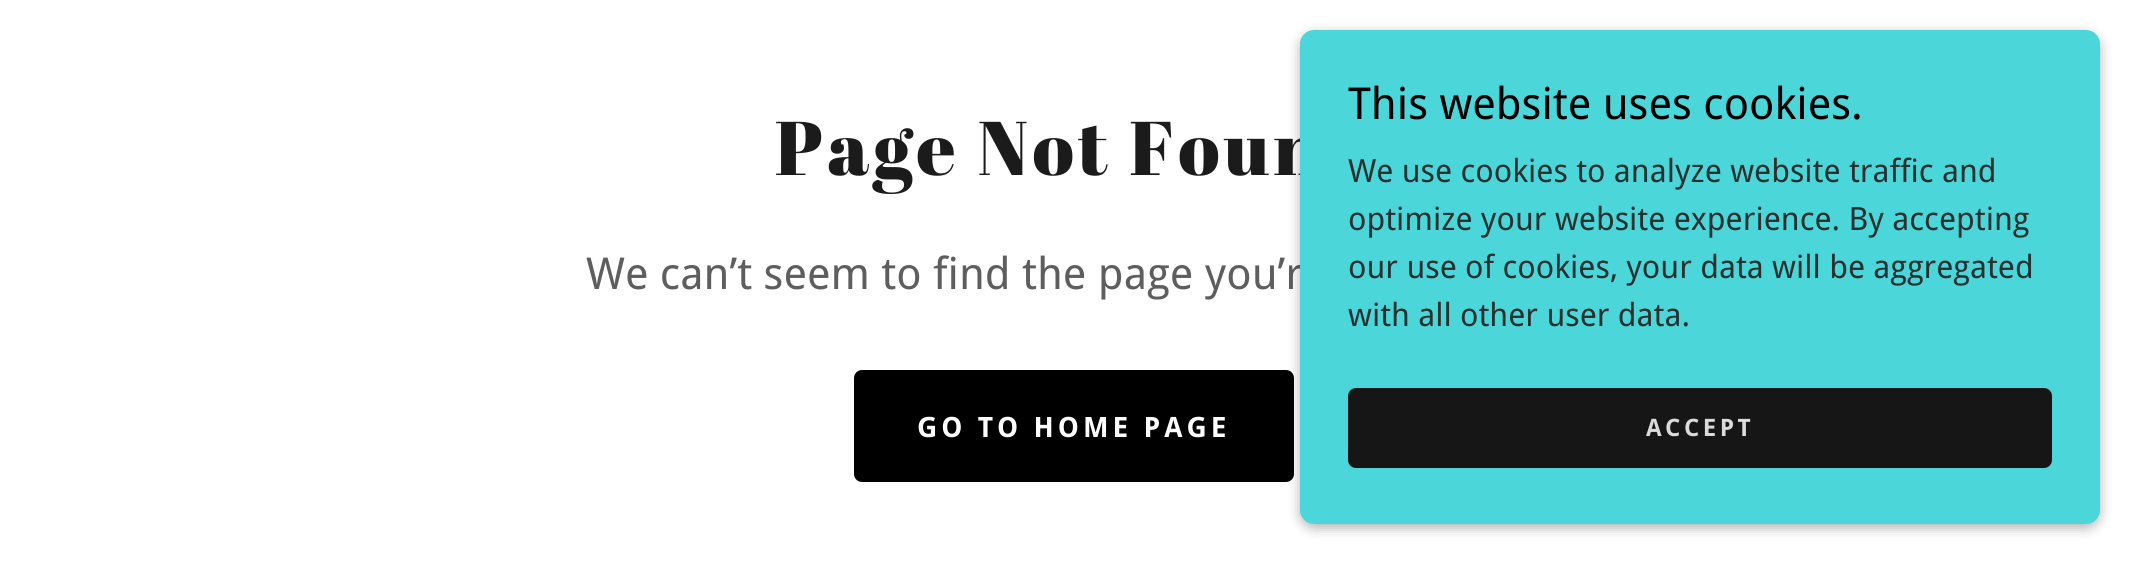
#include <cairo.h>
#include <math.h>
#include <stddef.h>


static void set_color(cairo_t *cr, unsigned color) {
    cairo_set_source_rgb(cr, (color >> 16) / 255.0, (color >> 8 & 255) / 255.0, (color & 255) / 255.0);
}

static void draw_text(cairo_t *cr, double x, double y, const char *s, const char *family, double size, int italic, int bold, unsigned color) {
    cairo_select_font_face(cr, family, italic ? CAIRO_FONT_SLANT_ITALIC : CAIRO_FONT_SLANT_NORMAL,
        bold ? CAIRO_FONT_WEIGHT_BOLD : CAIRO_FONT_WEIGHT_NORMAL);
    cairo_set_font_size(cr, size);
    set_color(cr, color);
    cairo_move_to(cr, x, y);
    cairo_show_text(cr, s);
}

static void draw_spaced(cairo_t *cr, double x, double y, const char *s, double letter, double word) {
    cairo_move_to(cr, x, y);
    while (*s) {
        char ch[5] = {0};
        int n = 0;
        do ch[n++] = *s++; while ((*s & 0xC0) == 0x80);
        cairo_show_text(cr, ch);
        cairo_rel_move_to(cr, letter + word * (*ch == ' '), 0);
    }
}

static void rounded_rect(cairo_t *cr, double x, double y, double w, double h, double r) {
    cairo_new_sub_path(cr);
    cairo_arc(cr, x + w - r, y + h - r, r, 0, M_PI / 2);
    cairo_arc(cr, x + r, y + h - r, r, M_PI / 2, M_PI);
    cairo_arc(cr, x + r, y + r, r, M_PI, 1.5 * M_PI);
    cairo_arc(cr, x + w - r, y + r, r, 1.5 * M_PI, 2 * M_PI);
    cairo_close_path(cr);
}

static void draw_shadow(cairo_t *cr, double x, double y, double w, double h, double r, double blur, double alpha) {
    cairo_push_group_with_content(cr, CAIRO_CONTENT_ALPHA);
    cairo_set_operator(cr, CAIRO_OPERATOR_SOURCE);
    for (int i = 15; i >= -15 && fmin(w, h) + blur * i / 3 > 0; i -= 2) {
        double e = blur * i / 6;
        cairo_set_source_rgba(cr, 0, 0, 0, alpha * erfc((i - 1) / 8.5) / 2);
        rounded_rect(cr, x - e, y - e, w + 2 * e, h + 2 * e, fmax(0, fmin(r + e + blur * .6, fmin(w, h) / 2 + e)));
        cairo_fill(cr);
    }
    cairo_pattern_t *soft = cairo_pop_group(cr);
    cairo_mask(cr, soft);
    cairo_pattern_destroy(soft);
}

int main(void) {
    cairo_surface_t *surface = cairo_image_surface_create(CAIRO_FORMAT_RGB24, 2147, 571);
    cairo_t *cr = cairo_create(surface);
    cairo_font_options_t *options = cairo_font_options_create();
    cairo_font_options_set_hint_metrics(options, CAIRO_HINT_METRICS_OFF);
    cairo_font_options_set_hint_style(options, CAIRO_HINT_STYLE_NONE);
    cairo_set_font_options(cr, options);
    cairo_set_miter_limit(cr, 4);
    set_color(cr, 0xFFFFFF);
    cairo_paint(cr);
    cairo_select_font_face(cr, "Abril Fatface", CAIRO_FONT_SLANT_NORMAL, CAIRO_FONT_WEIGHT_NORMAL);
    cairo_set_font_size(cr, 76);
    set_color(cr, 0x1B1B1B);
    draw_spaced(cr, 775, 175, "Page Not Foun", 4, 0);
    draw_text(cr, 586, 289, "We can’t seem to find the page you’r", "Droid Sans", 44, 0, 0, 0x5E5E5E);
    set_color(cr, 0x000000);
    rounded_rect(cr, 854, 370, 440, 112, 8);
    cairo_fill(cr);
    cairo_select_font_face(cr, "Droid Sans", CAIRO_FONT_SLANT_NORMAL, CAIRO_FONT_WEIGHT_BOLD);
    cairo_set_font_size(cr, 28);
    set_color(cr, 0xFFFFFF);
    draw_spaced(cr, 917, 437, "GO TO HOME PAGE", 4, 0);
    set_color(cr, 0x000000);
    draw_shadow(cr, 1300, 34, 800, 494, 14, 6, 0.3);
    set_color(cr, 0x4BD7DA);
    rounded_rect(cr, 1300, 30, 800, 494, 14);
    cairo_fill(cr);
    draw_text(cr, 1348, 119, "This website uses cookies.", "Droid Sans", 44, 0, 0, 0x000000);
    draw_text(cr, 1348, 182, "We use cookies to analyze website traffic and", "Droid Sans", 32, 0, 0, 0x293030);
    draw_text(cr, 1348, 230, "optimize your website experience. By accepting", "Droid Sans", 32, 0, 0, 0x293030);
    draw_text(cr, 1348, 278, "our use of cookies, your data will be aggregated", "Droid Sans", 32, 0, 0, 0x293030);
    draw_text(cr, 1348, 326, "with all other user data.", "Droid Sans", 32, 0, 0, 0x293030);
    set_color(cr, 0x161616);
    rounded_rect(cr, 1348, 388, 704, 80, 8);
    cairo_fill(cr);
    cairo_select_font_face(cr, "Droid Sans", CAIRO_FONT_SLANT_NORMAL, CAIRO_FONT_WEIGHT_BOLD);
    cairo_set_font_size(cr, 24);
    set_color(cr, 0xDBDBDB);
    draw_spaced(cr, 1646, 436, "ACCEPT", 3.5, 0);
    cairo_surface_write_to_png(surface, "output.png");
    cairo_font_options_destroy(options);
    cairo_destroy(cr);
    cairo_surface_destroy(surface);
    return 0;
}
